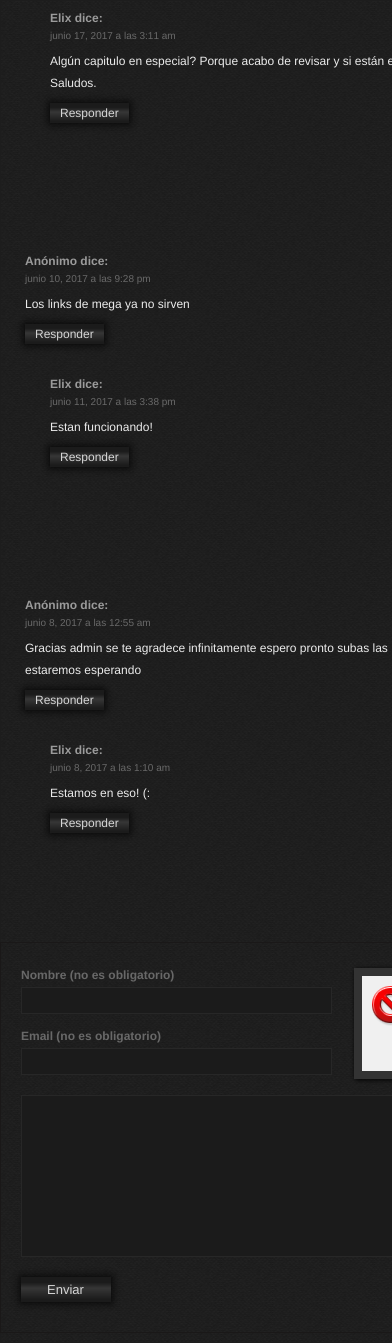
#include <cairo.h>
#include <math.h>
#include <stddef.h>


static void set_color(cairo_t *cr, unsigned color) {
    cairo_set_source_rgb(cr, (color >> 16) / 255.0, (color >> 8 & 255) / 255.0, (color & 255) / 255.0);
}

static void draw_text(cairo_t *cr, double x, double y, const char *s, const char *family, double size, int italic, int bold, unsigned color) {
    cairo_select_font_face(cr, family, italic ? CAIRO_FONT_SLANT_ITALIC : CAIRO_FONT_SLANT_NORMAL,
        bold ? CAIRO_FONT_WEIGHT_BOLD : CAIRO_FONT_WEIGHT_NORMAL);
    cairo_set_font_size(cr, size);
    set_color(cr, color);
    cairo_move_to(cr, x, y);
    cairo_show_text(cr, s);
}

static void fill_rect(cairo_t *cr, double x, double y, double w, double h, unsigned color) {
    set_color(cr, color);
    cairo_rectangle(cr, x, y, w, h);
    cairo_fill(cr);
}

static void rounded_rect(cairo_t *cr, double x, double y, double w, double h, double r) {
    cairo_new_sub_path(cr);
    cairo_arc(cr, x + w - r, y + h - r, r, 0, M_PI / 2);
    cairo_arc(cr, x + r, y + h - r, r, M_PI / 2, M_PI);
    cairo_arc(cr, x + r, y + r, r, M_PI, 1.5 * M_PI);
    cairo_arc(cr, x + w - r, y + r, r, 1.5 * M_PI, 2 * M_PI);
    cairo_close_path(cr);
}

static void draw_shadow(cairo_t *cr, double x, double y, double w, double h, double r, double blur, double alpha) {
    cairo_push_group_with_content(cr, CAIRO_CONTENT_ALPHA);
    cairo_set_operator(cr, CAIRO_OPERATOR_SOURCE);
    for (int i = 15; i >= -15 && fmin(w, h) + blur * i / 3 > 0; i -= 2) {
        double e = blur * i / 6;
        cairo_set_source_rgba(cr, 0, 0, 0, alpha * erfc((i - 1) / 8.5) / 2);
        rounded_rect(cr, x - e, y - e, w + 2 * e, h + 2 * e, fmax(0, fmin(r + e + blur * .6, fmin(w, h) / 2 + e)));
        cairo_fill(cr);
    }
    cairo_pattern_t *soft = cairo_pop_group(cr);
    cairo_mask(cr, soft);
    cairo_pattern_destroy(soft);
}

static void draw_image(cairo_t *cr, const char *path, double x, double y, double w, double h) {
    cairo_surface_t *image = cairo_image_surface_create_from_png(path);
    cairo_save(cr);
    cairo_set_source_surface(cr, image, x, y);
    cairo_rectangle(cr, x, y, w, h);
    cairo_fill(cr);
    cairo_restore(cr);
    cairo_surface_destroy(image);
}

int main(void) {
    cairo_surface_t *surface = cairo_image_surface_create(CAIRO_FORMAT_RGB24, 392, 1343);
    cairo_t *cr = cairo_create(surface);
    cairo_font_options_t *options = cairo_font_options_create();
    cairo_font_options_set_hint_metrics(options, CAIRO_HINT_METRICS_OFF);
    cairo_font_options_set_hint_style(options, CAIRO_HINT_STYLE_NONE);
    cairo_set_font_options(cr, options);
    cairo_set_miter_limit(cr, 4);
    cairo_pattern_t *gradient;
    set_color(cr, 0x1D1D1D);
    cairo_paint(cr);
    draw_image(cr, "assets/img1.png", 1, 1, 391, 1341);
    draw_text(cr, 50, 22, "Elix dice:", "Liberation Sans", 12, 0, 1, 0x9B9B9B);
    draw_text(cr, 50, 39, "junio 17, 2017 a las 3:11 am", "Liberation Sans", 10, 0, 0, 0x686868);
    draw_text(cr, 50, 65, "Algún capitulo en especial? Porque acabo de revisar y si están e", "Liberation Sans", 12, 0, 0, 0xEBEBEB);
    draw_text(cr, 50, 87, "Saludos.", "Liberation Sans", 12, 0, 0, 0xEBEBEB);
    set_color(cr, 0x000000);
    draw_shadow(cr, 50, 103, 79, 20, 0, 5, 1);
    gradient = cairo_pattern_create_linear(50, 123, 50, 103);
    cairo_pattern_add_color_stop_rgba(gradient, 0.1, 0.106, 0.106, 0.106, 1);
    cairo_pattern_add_color_stop_rgba(gradient, 0.55, 0.212, 0.212, 0.212, 1);
    cairo_pattern_add_color_stop_rgba(gradient, 0.78, 0.106, 0.106, 0.106, 1);
    cairo_set_source(cr, gradient);
    cairo_pattern_destroy(gradient);
    cairo_rectangle(cr, 50, 103, 79, 20);
    cairo_fill(cr);
    draw_text(cr, 60, 117, "Responder", "Liberation Sans", 12, 0, 0, 0xD5D5D5);
    draw_text(cr, 25, 265, "Anónimo dice:", "Liberation Sans", 12, 0, 1, 0x9B9B9B);
    draw_text(cr, 25, 282, "junio 10, 2017 a las 9:28 pm", "Liberation Sans", 10, 0, 0, 0x686868);
    draw_text(cr, 25, 308, "Los links de mega ya no sirven", "Liberation Sans", 12, 0, 0, 0xEBEBEB);
    set_color(cr, 0x000000);
    draw_shadow(cr, 25, 324, 79, 20, 0, 5, 1);
    gradient = cairo_pattern_create_linear(25, 344, 25, 324);
    cairo_pattern_add_color_stop_rgba(gradient, 0.1, 0.106, 0.106, 0.106, 1);
    cairo_pattern_add_color_stop_rgba(gradient, 0.55, 0.212, 0.212, 0.212, 1);
    cairo_pattern_add_color_stop_rgba(gradient, 0.78, 0.106, 0.106, 0.106, 1);
    cairo_set_source(cr, gradient);
    cairo_pattern_destroy(gradient);
    cairo_rectangle(cr, 25, 324, 79, 20);
    cairo_fill(cr);
    draw_text(cr, 35, 338, "Responder", "Liberation Sans", 12, 0, 0, 0xD5D5D5);
    draw_text(cr, 50, 388, "Elix dice:", "Liberation Sans", 12, 0, 1, 0x9B9B9B);
    draw_text(cr, 50, 405, "junio 11, 2017 a las 3:38 pm", "Liberation Sans", 10, 0, 0, 0x686868);
    draw_text(cr, 50, 431, "Estan funcionando!", "Liberation Sans", 12, 0, 0, 0xEBEBEB);
    set_color(cr, 0x000000);
    draw_shadow(cr, 50, 447, 79, 20, 0, 5, 1);
    gradient = cairo_pattern_create_linear(50, 467, 50, 447);
    cairo_pattern_add_color_stop_rgba(gradient, 0.1, 0.106, 0.106, 0.106, 1);
    cairo_pattern_add_color_stop_rgba(gradient, 0.55, 0.212, 0.212, 0.212, 1);
    cairo_pattern_add_color_stop_rgba(gradient, 0.78, 0.106, 0.106, 0.106, 1);
    cairo_set_source(cr, gradient);
    cairo_pattern_destroy(gradient);
    cairo_rectangle(cr, 50, 447, 79, 20);
    cairo_fill(cr);
    draw_text(cr, 60, 461, "Responder", "Liberation Sans", 12, 0, 0, 0xD5D5D5);
    draw_text(cr, 25, 609, "Anónimo dice:", "Liberation Sans", 12, 0, 1, 0x9B9B9B);
    draw_text(cr, 25, 626, "junio 8, 2017 a las 12:55 am", "Liberation Sans", 10, 0, 0, 0x686868);
    draw_text(cr, 25, 652, "Gracias admin se te agradece infinitamente espero pronto subas las", "Liberation Sans", 12, 0, 0, 0xEBEBEB);
    draw_text(cr, 25, 674, "estaremos esperando", "Liberation Sans", 12, 0, 0, 0xEBEBEB);
    set_color(cr, 0x000000);
    draw_shadow(cr, 25, 690, 79, 20, 0, 5, 1);
    gradient = cairo_pattern_create_linear(25, 710, 25, 690);
    cairo_pattern_add_color_stop_rgba(gradient, 0.1, 0.106, 0.106, 0.106, 1);
    cairo_pattern_add_color_stop_rgba(gradient, 0.55, 0.212, 0.212, 0.212, 1);
    cairo_pattern_add_color_stop_rgba(gradient, 0.78, 0.106, 0.106, 0.106, 1);
    cairo_set_source(cr, gradient);
    cairo_pattern_destroy(gradient);
    cairo_rectangle(cr, 25, 690, 79, 20);
    cairo_fill(cr);
    draw_text(cr, 35, 704, "Responder", "Liberation Sans", 12, 0, 0, 0xD5D5D5);
    draw_text(cr, 50, 754, "Elix dice:", "Liberation Sans", 12, 0, 1, 0x9B9B9B);
    draw_text(cr, 50, 771, "junio 8, 2017 a las 1:10 am", "Liberation Sans", 10, 0, 0, 0x686868);
    draw_text(cr, 50, 797, "Estamos en eso! (:", "Liberation Sans", 12, 0, 0, 0xEBEBEB);
    set_color(cr, 0x000000);
    draw_shadow(cr, 50, 813, 79, 20, 0, 5, 1);
    gradient = cairo_pattern_create_linear(50, 833, 50, 813);
    cairo_pattern_add_color_stop_rgba(gradient, 0.1, 0.106, 0.106, 0.106, 1);
    cairo_pattern_add_color_stop_rgba(gradient, 0.55, 0.212, 0.212, 0.212, 1);
    cairo_pattern_add_color_stop_rgba(gradient, 0.78, 0.106, 0.106, 0.106, 1);
    cairo_set_source(cr, gradient);
    cairo_pattern_destroy(gradient);
    cairo_rectangle(cr, 50, 813, 79, 20);
    cairo_fill(cr);
    draw_text(cr, 60, 827, "Responder", "Liberation Sans", 12, 0, 0, 0xD5D5D5);
    cairo_rectangle(cr, 0.5, 942.5, 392, 390);
    set_color(cr, 0x1A1818);
    cairo_set_line_width(cr, 1);
    cairo_stroke(cr);
    draw_text(cr, 21, 979, "Nombre (no es obligatorio)", "Liberation Sans", 12, 0, 1, 0x686868);
    set_color(cr, 0x000000);
    draw_shadow(cr, 355, 969, 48, 111, 3, 2.5, 1);
    fill_rect(cr, 362, 976, 30, 95, 0xF0F0F0);
    draw_image(cr, "assets/img2.png", 372, 986, 20, 40);
    cairo_new_path(cr);
    cairo_move_to(cr, 358, 972);
    cairo_line_to(cr, 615, 972);
    cairo_line_to(cr, 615, 1075);
    cairo_line_to(cr, 358, 1075);
    cairo_close_path(cr);
    set_color(cr, 0x333333);
    cairo_set_line_width(cr, 8);
    cairo_stroke(cr);
    set_color(cr, 0x1B1B1B);
    cairo_rectangle(cr, 21.5, 987.5, 310, 26);
    cairo_fill_preserve(cr);
    set_color(cr, 0x272727);
    cairo_set_line_width(cr, 1);
    cairo_stroke(cr);
    draw_text(cr, 21, 1040, "Email (no es obligatorio)", "Liberation Sans", 12, 0, 1, 0x686868);
    set_color(cr, 0x1B1B1B);
    cairo_rectangle(cr, 21.5, 1048.5, 310, 26);
    cairo_fill_preserve(cr);
    set_color(cr, 0x272727);
    cairo_stroke(cr);
    set_color(cr, 0x1B1B1B);
    cairo_rectangle(cr, 21.5, 1095.5, 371, 161);
    cairo_fill_preserve(cr);
    set_color(cr, 0x272727);
    cairo_stroke(cr);
    set_color(cr, 0x000000);
    draw_shadow(cr, 21, 1277, 90, 25, 0, 5, 1);
    gradient = cairo_pattern_create_linear(21, 1302, 21, 1277);
    cairo_pattern_add_color_stop_rgba(gradient, 0.1, 0.106, 0.106, 0.106, 1);
    cairo_pattern_add_color_stop_rgba(gradient, 0.55, 0.212, 0.212, 0.212, 1);
    cairo_pattern_add_color_stop_rgba(gradient, 0.78, 0.106, 0.106, 0.106, 1);
    cairo_set_source(cr, gradient);
    cairo_pattern_destroy(gradient);
    cairo_rectangle(cr, 21, 1277, 90, 25);
    cairo_fill(cr);
    draw_text(cr, 47, 1294, "Enviar", "Liberation Sans", 13, 0, 0, 0xD5D5D5);
    cairo_surface_write_to_png(surface, "output.png");
    cairo_font_options_destroy(options);
    cairo_destroy(cr);
    cairo_surface_destroy(surface);
    return 0;
}
